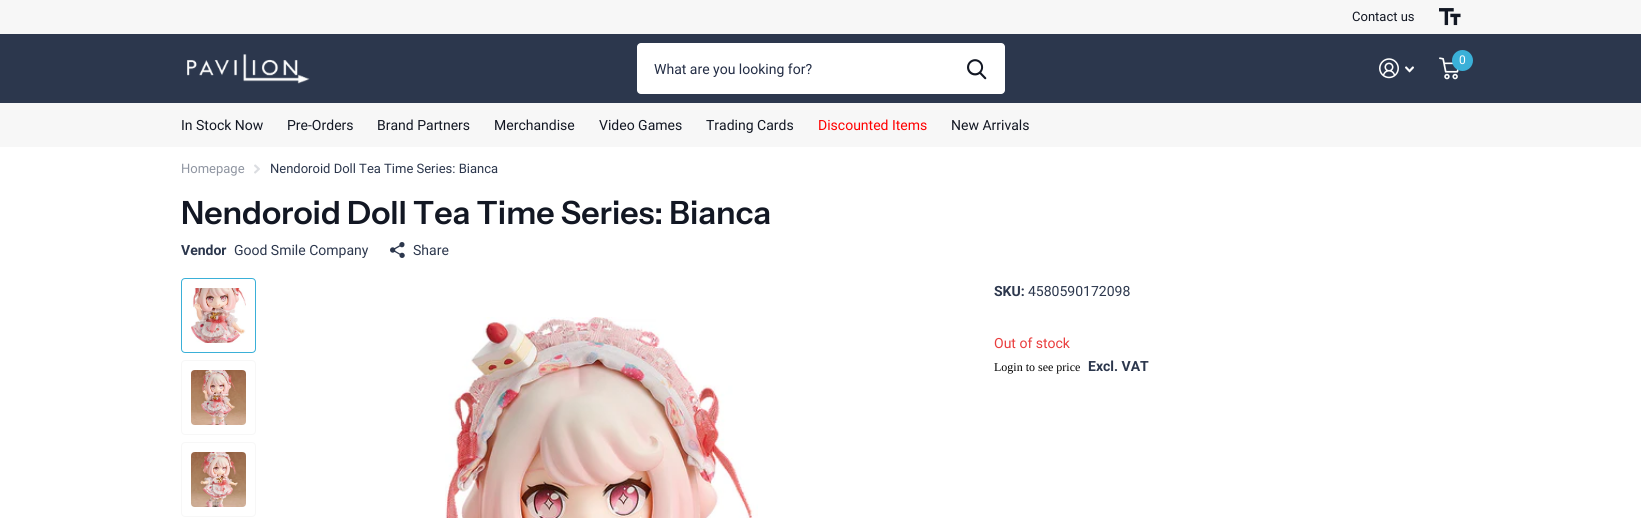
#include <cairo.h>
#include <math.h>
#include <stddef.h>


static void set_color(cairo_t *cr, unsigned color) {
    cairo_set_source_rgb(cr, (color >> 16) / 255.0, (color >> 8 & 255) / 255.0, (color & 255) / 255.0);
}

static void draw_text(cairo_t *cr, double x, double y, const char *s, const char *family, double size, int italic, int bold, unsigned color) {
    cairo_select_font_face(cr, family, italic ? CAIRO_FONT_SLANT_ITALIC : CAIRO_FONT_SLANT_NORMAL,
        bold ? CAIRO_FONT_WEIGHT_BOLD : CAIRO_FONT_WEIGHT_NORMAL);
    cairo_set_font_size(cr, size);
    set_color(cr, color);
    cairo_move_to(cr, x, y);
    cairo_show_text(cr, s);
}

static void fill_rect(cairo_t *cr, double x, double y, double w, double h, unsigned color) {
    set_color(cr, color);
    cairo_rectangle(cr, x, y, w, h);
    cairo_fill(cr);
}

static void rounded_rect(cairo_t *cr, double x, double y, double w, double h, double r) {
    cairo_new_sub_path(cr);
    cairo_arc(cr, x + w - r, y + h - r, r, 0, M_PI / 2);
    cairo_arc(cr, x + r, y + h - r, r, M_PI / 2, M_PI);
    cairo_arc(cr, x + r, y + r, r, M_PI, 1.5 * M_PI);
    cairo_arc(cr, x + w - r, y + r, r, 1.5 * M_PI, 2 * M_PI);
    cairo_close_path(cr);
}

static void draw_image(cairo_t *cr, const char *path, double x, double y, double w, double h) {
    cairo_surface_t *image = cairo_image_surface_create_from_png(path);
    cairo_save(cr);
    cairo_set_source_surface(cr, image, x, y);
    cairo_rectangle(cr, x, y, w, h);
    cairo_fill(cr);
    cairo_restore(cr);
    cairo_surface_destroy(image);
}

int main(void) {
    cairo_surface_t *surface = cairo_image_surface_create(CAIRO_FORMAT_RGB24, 1641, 518);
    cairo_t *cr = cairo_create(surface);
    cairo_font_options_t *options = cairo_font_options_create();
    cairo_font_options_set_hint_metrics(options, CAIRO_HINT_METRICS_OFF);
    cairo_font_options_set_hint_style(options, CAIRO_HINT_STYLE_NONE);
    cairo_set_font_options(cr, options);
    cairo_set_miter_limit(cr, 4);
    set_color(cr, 0xFFFFFF);
    cairo_paint(cr);
    fill_rect(cr, 0, 0, 1641, 34, 0xF7F7F7);
    draw_text(cr, 1352, 21, "Contact us", "Roboto", 13, 0, 0, 0x121723);
    draw_image(cr, "assets/img1.png", 1439, 8, 22, 18);
    fill_rect(cr, 0, 34, 1641, 69, 0x2C374D);
    draw_image(cr, "assets/img2.png", 187, 54, 123, 30);
    draw_image(cr, "assets/img3.png", 1379, 58, 20, 21);
    draw_image(cr, "assets/img4.png", 1405, 66, 9, 7);
    draw_image(cr, "assets/img5.png", 1439, 57, 20, 23);
    set_color(cr, 0x3AB0D8);
    cairo_arc(cr, 1462.5, 60.5, 10.5, 0, 2 * M_PI);
    cairo_fill(cr);
    draw_text(cr, 1459, 64, "0", "Roboto", 12, 0, 0, 0xFFFFFF);
    rounded_rect(cr, 637, 43, 368, 51, 4);
    cairo_fill(cr);
    draw_text(cr, 654, 74, "What are you looking for?", "Roboto", 14, 0, 0, 0x232D45);
    draw_image(cr, "assets/img6.png", 967, 59, 20, 21);
    fill_rect(cr, 0, 103, 1641, 44, 0xF7F7F7);
    draw_text(cr, 181, 130, "In Stock Now", "Roboto", 14, 0, 0, 0x121723);
    draw_text(cr, 287, 130, "Pre-Orders", "Roboto", 14, 0, 0, 0x121723);
    draw_text(cr, 377, 130, "Brand Partners", "Roboto", 14, 0, 0, 0x121723);
    draw_text(cr, 494, 130, "Merchandise", "Roboto", 14, 0, 0, 0x121723);
    draw_text(cr, 599, 130, "Video Games", "Roboto", 14, 0, 0, 0x121723);
    draw_text(cr, 706, 130, "Trading Cards", "Roboto", 14, 0, 0, 0x121723);
    draw_text(cr, 818, 130, "Discounted Items", "Roboto", 14, 0, 0, 0xFF0000);
    draw_text(cr, 951, 130, "New Arrivals", "Roboto", 14, 0, 0, 0x121723);
    draw_text(cr, 181, 173, "Homepage", "Roboto", 13, 0, 0, 0x8F95A1);
    draw_image(cr, "assets/img7.png", 254, 164, 6, 10);
    draw_text(cr, 270, 173, "Nendoroid Doll Tea Time Series: Bianca", "Roboto", 13, 0, 0, 0x2C374D);
    draw_text(cr, 181, 224, "Nendoroid Doll Tea Time Series: Bianca", "Instrument Sans SemiBold", 32, 0, 0, 0x121723);
    draw_text(cr, 181, 255, "Vendor", "Roboto", 14, 0, 1, 0x2C374D);
    draw_text(cr, 234, 255, "Good Smile Company", "Roboto", 14, 0, 0, 0x2C374D);
    draw_image(cr, "assets/img8.png", 390, 242, 15, 16);
    draw_text(cr, 413, 255, "Share", "Roboto", 14, 0, 0, 0x2C374D);
    rounded_rect(cr, 181.5, 278.5, 74, 74, 3.5);
    set_color(cr, 0x3AB0D8);
    cairo_set_line_width(cr, 1);
    cairo_stroke(cr);
    draw_image(cr, "assets/img9.png", 191, 288, 55, 55);
    rounded_rect(cr, 181.5, 360.5, 74, 74, 3.5);
    set_color(cr, 0xF7F7F7);
    cairo_stroke(cr);
    draw_image(cr, "assets/img10.png", 191, 370, 55, 55);
    rounded_rect(cr, 181.5, 442.5, 74, 74, 3.5);
    cairo_stroke(cr);
    draw_image(cr, "assets/img11.png", 191, 452, 55, 55);
    draw_image(cr, "assets/img12.png", 445, 317, 313, 201);
    draw_text(cr, 994, 296, "SKU:", "Roboto", 14, 0, 1, 0x2C374D);
    draw_text(cr, 1028, 296, "4580590172098", "Roboto", 14, 0, 0, 0x2C374D);
    draw_text(cr, 994, 348, "Out of stock", "Roboto", 14, 0, 0, 0xE93D3D);
    draw_text(cr, 994, 371, "Login to see price", "Liberation Serif", 12, 0, 0, 0x000000);
    draw_text(cr, 1088, 371, "Excl. VAT", "Roboto", 14, 0, 1, 0x2C374D);
    cairo_surface_write_to_png(surface, "output.png");
    cairo_font_options_destroy(options);
    cairo_destroy(cr);
    cairo_surface_destroy(surface);
    return 0;
}
